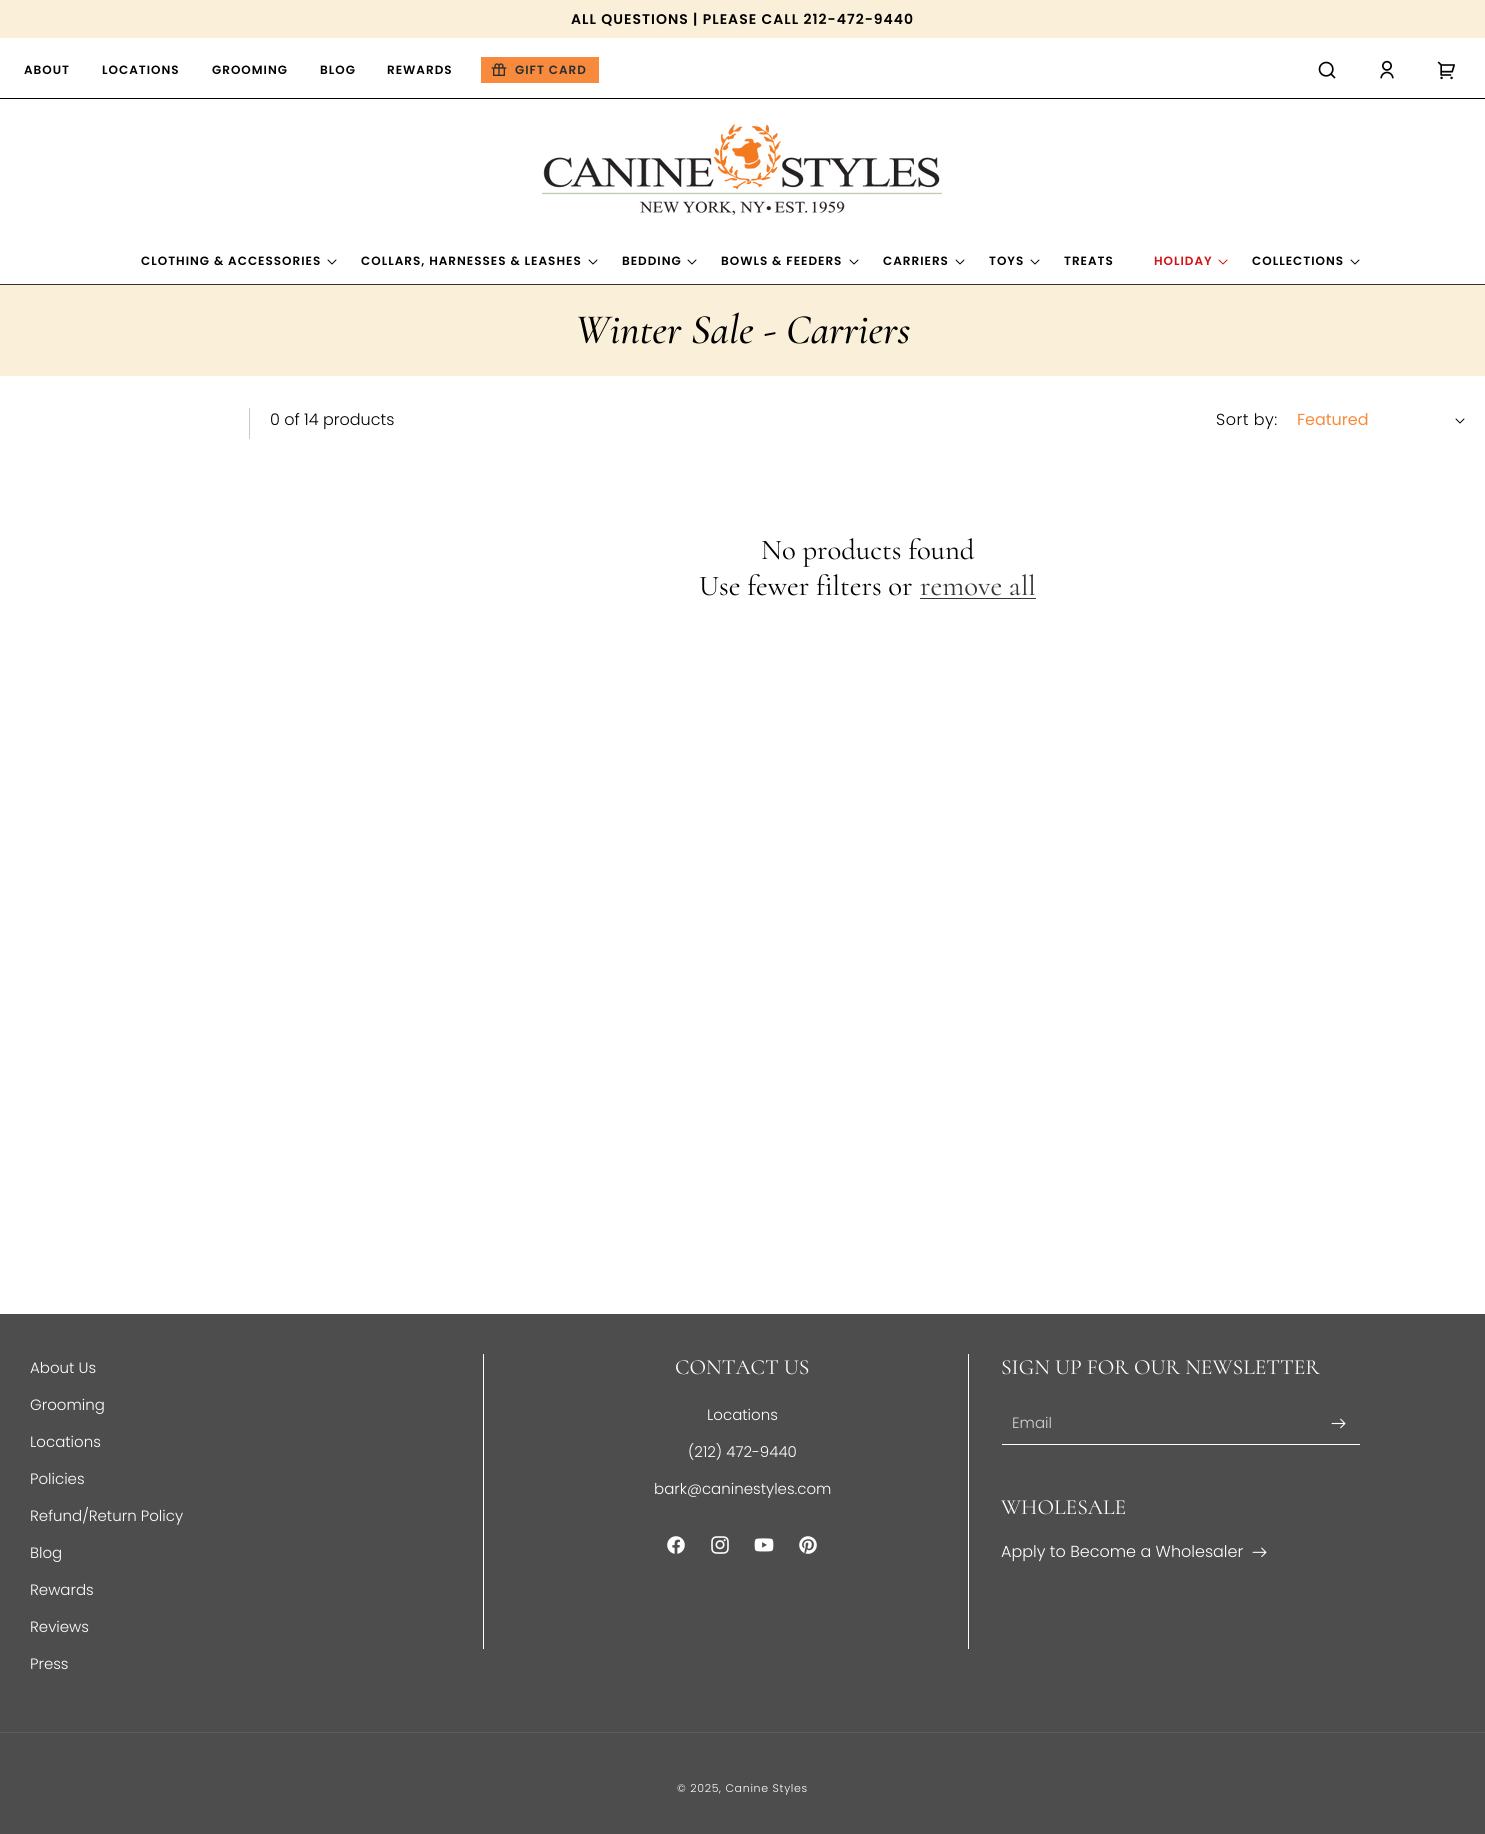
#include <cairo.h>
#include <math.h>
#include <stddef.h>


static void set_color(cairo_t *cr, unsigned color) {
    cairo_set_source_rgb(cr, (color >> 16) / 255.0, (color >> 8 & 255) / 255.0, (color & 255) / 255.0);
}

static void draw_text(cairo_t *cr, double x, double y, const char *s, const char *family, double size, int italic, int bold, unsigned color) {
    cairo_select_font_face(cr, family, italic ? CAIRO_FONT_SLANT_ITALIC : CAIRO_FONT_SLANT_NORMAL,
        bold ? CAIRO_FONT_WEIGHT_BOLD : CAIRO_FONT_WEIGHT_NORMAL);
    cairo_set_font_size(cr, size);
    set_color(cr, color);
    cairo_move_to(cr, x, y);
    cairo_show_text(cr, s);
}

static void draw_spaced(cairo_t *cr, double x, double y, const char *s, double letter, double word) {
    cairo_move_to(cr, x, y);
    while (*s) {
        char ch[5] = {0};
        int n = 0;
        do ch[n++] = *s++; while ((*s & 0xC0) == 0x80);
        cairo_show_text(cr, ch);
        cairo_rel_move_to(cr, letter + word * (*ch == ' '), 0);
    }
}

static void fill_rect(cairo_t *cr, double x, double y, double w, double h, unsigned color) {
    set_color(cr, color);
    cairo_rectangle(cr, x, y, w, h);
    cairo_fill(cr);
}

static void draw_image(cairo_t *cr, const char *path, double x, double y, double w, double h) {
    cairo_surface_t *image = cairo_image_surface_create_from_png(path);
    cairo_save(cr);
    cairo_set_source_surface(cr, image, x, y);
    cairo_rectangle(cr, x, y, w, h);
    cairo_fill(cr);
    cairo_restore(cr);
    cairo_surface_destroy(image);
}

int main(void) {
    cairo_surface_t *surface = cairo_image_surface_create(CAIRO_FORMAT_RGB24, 1485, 1834);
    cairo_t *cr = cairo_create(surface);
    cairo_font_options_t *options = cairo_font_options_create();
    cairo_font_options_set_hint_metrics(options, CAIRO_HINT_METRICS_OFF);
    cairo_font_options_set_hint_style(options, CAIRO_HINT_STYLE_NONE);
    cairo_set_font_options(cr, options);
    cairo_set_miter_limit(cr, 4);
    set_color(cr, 0xFFFFFF);
    cairo_paint(cr);
    fill_rect(cr, 0, 0, 1485, 38, 0xFAEFD9);
    cairo_select_font_face(cr, "Poppins SemiBold", CAIRO_FONT_SLANT_NORMAL, CAIRO_FONT_WEIGHT_NORMAL);
    cairo_set_font_size(cr, 14);
    set_color(cr, 0x000000);
    draw_spaced(cr, 571, 24, "ALL QUESTIONS | PLEASE CALL 212-472-9440", 1, 0);
    fill_rect(cr, 0, 284, 1485, 1, 0x333333);
    cairo_set_font_size(cr, 12);
    set_color(cr, 0x000000);
    draw_spaced(cr, 24, 74, "ABOUT", 1, 0);
    draw_spaced(cr, 102, 74, "LOCATIONS", 1, 0);
    draw_spaced(cr, 212, 74, "GROOMING", 1, 0);
    draw_spaced(cr, 320, 74, "BLOG", 1, 0);
    draw_spaced(cr, 387, 74, "REWARDS", 1, 0);
    fill_rect(cr, 481, 57, 118, 26, 0xF78A3D);
    draw_image(cr, "assets/img1.png", 491, 63, 16, 13);
    set_color(cr, 0x2A2E2E);
    draw_spaced(cr, 515, 74, "GIFT CARD", 1, 0);
    draw_image(cr, "assets/img2.png", 1318, 61, 18, 18);
    draw_image(cr, "assets/img3.png", 1380, 60, 14, 19);
    draw_image(cr, "assets/img4.png", 1437, 61, 18, 19);
    fill_rect(cr, 0, 98, 1485, 1, 0x000000);
    draw_image(cr, "assets/img5.png", 542, 124, 400, 91);
    draw_spaced(cr, 141, 265, "CLOTHING & ACCESSORIES", 1, 0);
    draw_image(cr, "assets/img6.png", 327, 259, 10, 6);
    draw_spaced(cr, 361, 265, "COLLARS, HARNESSES & LEASHES", 1, 0);
    draw_image(cr, "assets/img6.png", 588, 259, 10, 6);
    draw_spaced(cr, 622, 265, "BEDDING", 1, 0);
    draw_image(cr, "assets/img6.png", 687, 259, 10, 6);
    draw_spaced(cr, 721, 265, "BOWLS & FEEDERS", 1, 0);
    draw_image(cr, "assets/img6.png", 849, 259, 10, 6);
    draw_spaced(cr, 883, 265, "CARRIERS", 1, 0);
    draw_image(cr, "assets/img6.png", 955, 259, 10, 6);
    draw_spaced(cr, 989, 265, "TOYS", 1, 0);
    draw_image(cr, "assets/img6.png", 1030, 259, 10, 6);
    draw_spaced(cr, 1064, 265, "TREATS", 1, 0);
    set_color(cr, 0xD31313);
    draw_spaced(cr, 1154, 265, "HOLIDAY", 1, 0);
    draw_image(cr, "assets/img7.png", 1218, 259, 10, 6);
    set_color(cr, 0x000000);
    draw_spaced(cr, 1252, 265, "COLLECTIONS", 1, 0);
    draw_image(cr, "assets/img6.png", 1350, 259, 10, 6);
    fill_rect(cr, 0, 285, 1485, 91, 0xFAEFD9);
    draw_text(cr, 575, 343, "Winter Sale - Carriers", "Cormorant Medium", 42, 1, 0, 0x000000);
    fill_rect(cr, 249, 408, 1, 31, 0xC9C9C9);
    draw_text(cr, 270, 425, "0 of 14 products", "Poppins Light", 16, 0, 0, 0x000000);
    draw_spaced(cr, 1216, 425, "Sort by:", 0.5, 0);
    draw_text(cr, 1297, 425, "Featured", "Poppins", 16, 0, 0, 0xF78A3D);
    draw_image(cr, "assets/img6.png", 1455, 418, 10, 6);
    draw_text(cr, 761, 559, "No products found", "Cormorant", 28.75, 0, 0, 0x000000);
    draw_text(cr, 699, 595, "Use fewer filters or", "Cormorant", 28.75, 0, 0, 0x000000);
    draw_text(cr, 920, 595, "remove all", "Cormorant", 28.75, 0, 0, 0x363636);
    fill_rect(cr, 920, 598, 116, 1, 0x363636);
    fill_rect(cr, 0, 1314, 1485, 520, 0x4D4D4D);
    draw_text(cr, 30, 1373, "About Us", "Poppins Light", 15, 0, 0, 0xFFFFFF);
    draw_text(cr, 30, 1410, "Grooming", "Poppins Light", 15, 0, 0, 0xFFFFFF);
    draw_text(cr, 30, 1447, "Locations", "Poppins Light", 15, 0, 0, 0xFFFFFF);
    draw_text(cr, 30, 1484, "Policies", "Poppins Light", 15, 0, 0, 0xFFFFFF);
    draw_text(cr, 30, 1521, "Refund/Return Policy", "Poppins Light", 15, 0, 0, 0xFFFFFF);
    draw_text(cr, 30, 1558, "Blog", "Poppins Light", 15, 0, 0, 0xFFFFFF);
    draw_text(cr, 30, 1595, "Rewards", "Poppins Light", 15, 0, 0, 0xFFFFFF);
    draw_text(cr, 30, 1632, "Reviews", "Poppins Light", 15, 0, 0, 0xFFFFFF);
    draw_text(cr, 30, 1669, "Press", "Poppins Light", 15, 0, 0, 0xFFFFFF);
    fill_rect(cr, 483, 1354, 1, 295, 0xFFFFFF);
    draw_text(cr, 675, 1374, "CONTACT US", "Cormorant", 21.6, 0, 0, 0xFFFFFF);
    fill_rect(cr, 968, 1354, 1, 295, 0xFFFFFF);
    draw_text(cr, 707, 1420, "Locations", "Poppins Light", 15, 0, 0, 0xFFFFFF);
    draw_text(cr, 688, 1457, "(212) 472-9440", "Poppins Light", 15, 0, 0, 0xFFFFFF);
    draw_text(cr, 654, 1494, "bark@caninestyles.com", "Poppins Light", 15, 0, 0, 0xFFFFFF);
    draw_image(cr, "assets/img8.png", 667, 1536, 18, 18);
    draw_image(cr, "assets/img9.png", 711, 1536, 18, 18);
    draw_image(cr, "assets/img10.png", 754, 1538, 20, 14);
    draw_image(cr, "assets/img11.png", 799, 1536, 18, 18);
    draw_text(cr, 1001, 1374, "SIGN UP FOR OUR NEWSLETTER", "Cormorant", 21.6, 0, 0, 0xFFFFFF);
    draw_text(cr, 1012, 1428, "Email", "Poppins Light", 15, 0, 0, 0xD3D3D3);
    draw_image(cr, "assets/img12.png", 1331, 1418, 15, 11);
    fill_rect(cr, 1002, 1444, 358, 1, 0xFFFFFF);
    draw_text(cr, 1001, 1514, "WHOLESALE", "Cormorant", 21.6, 0, 0, 0xFFFFFF);
    draw_text(cr, 1001, 1557, "Apply to Become a Wholesaler", "Poppins Light", 16, 0, 0, 0xFFFFFF);
    draw_image(cr, "assets/img13.png", 1252, 1547, 15, 10);
    fill_rect(cr, 0, 1732, 1485, 1, 0x5B5B5B);
    cairo_set_font_size(cr, 11);
    set_color(cr, 0xFFFFFF);
    draw_spaced(cr, 677, 1792, "© 2025, Canine Styles", 0.7, 0);
    cairo_surface_write_to_png(surface, "output.png");
    cairo_font_options_destroy(options);
    cairo_destroy(cr);
    cairo_surface_destroy(surface);
    return 0;
}
